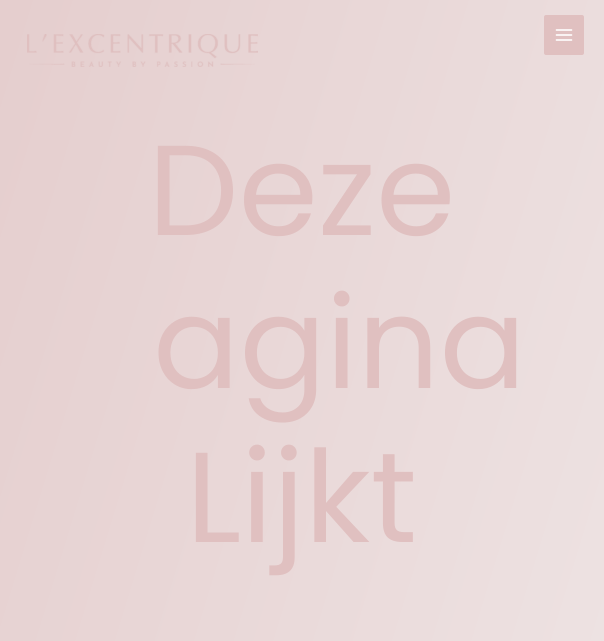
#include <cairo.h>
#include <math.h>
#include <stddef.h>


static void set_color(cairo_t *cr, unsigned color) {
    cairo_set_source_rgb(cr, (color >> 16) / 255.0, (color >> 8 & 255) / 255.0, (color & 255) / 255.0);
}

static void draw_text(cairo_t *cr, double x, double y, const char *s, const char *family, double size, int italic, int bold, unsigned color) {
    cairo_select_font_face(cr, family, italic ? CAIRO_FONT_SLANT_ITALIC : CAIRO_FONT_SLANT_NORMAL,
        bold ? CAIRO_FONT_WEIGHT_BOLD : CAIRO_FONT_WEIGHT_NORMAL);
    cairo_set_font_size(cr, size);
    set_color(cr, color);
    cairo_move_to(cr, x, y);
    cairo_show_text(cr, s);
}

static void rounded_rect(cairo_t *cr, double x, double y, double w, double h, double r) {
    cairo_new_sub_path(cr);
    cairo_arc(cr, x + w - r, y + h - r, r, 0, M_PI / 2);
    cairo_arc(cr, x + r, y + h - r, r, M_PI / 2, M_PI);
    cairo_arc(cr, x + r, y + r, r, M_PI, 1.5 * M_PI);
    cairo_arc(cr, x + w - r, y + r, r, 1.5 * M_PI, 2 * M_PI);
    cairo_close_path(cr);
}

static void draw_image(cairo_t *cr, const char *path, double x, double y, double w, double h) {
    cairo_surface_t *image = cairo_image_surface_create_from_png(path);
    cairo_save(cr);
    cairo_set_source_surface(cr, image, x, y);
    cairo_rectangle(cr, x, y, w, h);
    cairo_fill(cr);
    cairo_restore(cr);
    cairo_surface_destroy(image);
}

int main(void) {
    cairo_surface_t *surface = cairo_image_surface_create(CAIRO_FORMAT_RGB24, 604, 641);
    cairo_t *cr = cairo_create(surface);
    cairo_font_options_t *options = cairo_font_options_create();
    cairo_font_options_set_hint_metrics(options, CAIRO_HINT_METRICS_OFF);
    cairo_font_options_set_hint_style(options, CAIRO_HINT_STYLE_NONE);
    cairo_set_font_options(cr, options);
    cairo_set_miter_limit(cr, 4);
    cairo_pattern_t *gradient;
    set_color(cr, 0xFFFFFF);
    cairo_paint(cr);
    gradient = cairo_pattern_create_linear(-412, 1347, 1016, 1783);
    cairo_pattern_add_color_stop_rgba(gradient, 0.01, 0.898, 0.808, 0.808, 1);
    cairo_pattern_add_color_stop_rgba(gradient, 1, 0.961, 0.961, 0.961, 1);
    cairo_set_source(cr, gradient);
    cairo_pattern_destroy(gradient);
    cairo_rectangle(cr, 0, 0, 604, 641);
    cairo_fill(cr);
    draw_image(cr, "assets/img1.png", 27, 34, 231, 33);
    set_color(cr, 0xE0C0C0);
    rounded_rect(cr, 544, 15, 40, 40, 2);
    cairo_fill(cr);
    draw_image(cr, "assets/img2.png", 555, 29, 18, 12);
    draw_text(cr, 148, 235, "Deze", "Poppins", 128, 0, 0, 0xE0C0C0);
    draw_text(cr, 153, 388, "agina", "Poppins", 128, 0, 0, 0xE0C0C0);
    draw_text(cr, 186, 542, "Lijkt", "Poppins", 128, 0, 0, 0xE0C0C0);
    cairo_surface_write_to_png(surface, "output.png");
    cairo_font_options_destroy(options);
    cairo_destroy(cr);
    cairo_surface_destroy(surface);
    return 0;
}
